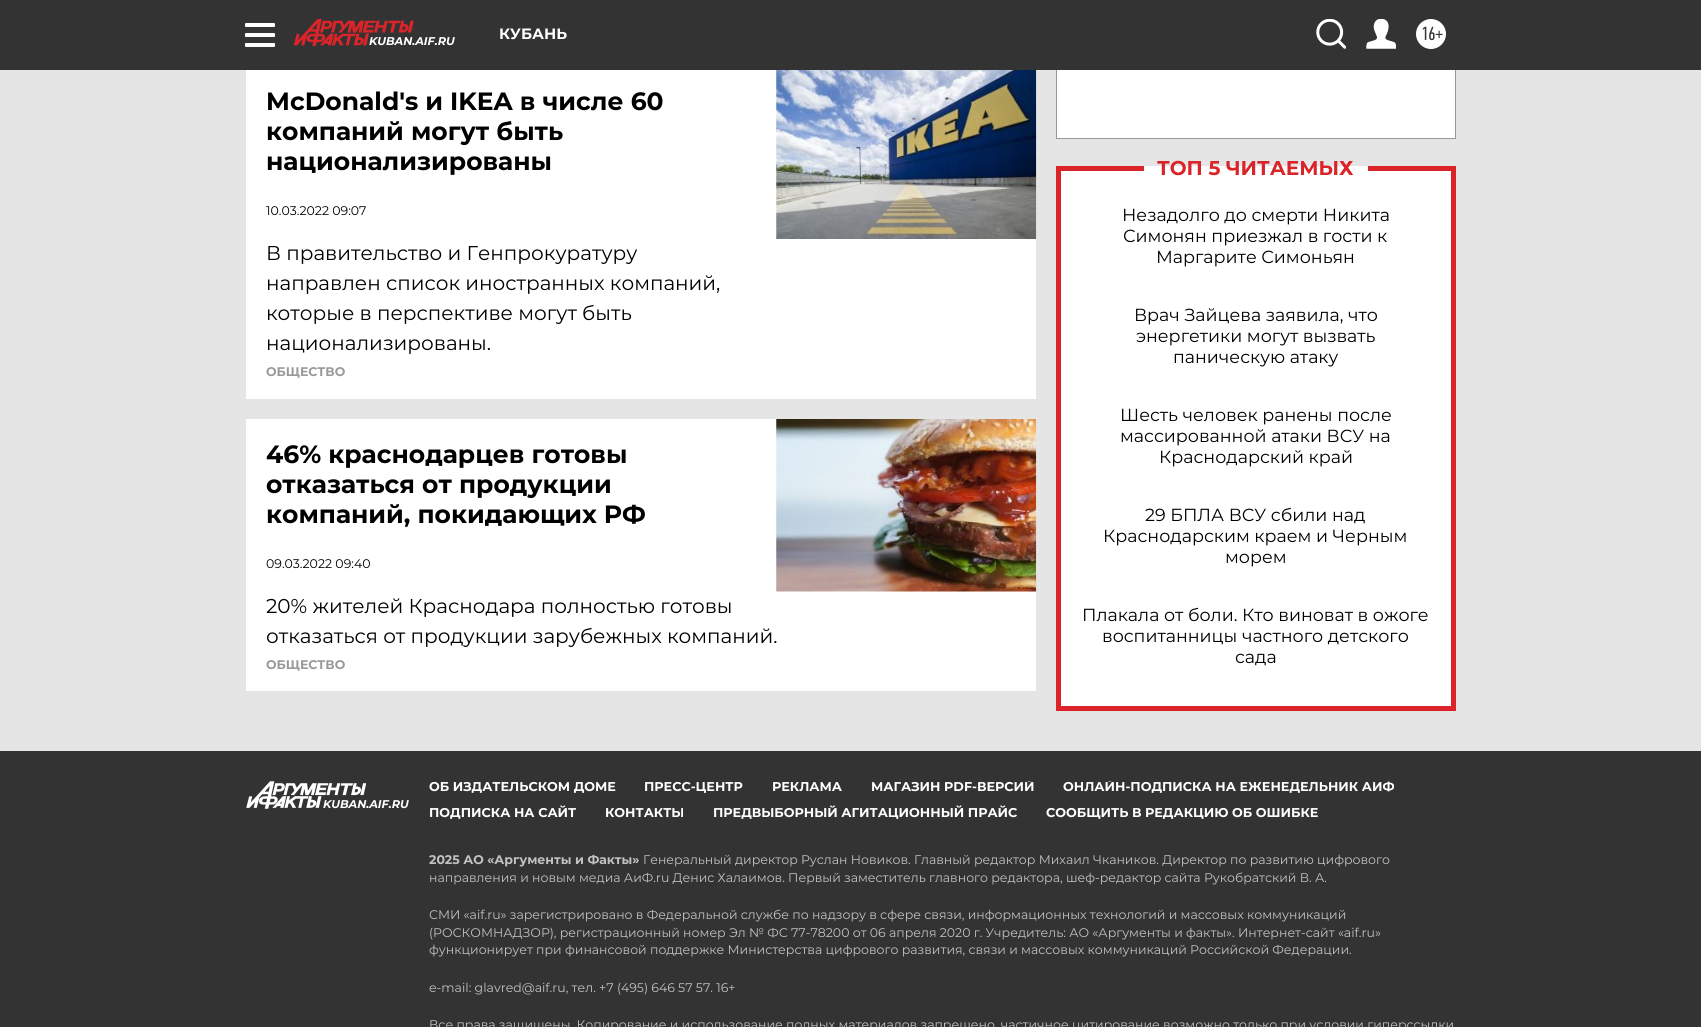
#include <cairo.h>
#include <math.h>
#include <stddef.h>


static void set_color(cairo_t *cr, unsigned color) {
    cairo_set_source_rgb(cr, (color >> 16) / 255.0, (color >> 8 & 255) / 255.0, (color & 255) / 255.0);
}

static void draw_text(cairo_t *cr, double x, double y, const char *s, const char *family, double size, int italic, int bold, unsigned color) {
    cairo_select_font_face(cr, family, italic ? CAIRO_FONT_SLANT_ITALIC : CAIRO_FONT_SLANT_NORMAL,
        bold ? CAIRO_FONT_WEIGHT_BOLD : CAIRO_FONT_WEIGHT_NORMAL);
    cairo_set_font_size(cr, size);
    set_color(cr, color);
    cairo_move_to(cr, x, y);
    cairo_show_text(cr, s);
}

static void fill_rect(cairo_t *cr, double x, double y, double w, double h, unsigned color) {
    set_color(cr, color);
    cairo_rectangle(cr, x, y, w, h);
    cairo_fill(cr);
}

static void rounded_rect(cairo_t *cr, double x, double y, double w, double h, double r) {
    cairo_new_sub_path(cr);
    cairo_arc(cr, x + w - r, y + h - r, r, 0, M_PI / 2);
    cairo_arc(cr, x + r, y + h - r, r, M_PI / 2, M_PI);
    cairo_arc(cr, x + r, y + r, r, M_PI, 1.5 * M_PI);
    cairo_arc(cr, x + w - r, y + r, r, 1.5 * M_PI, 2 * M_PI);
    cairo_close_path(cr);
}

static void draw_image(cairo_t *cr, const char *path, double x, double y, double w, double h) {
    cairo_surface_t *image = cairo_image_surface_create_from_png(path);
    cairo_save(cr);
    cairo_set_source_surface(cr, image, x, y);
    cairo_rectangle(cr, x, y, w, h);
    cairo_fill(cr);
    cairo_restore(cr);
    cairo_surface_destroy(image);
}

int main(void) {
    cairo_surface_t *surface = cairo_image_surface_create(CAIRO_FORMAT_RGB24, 1701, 1027);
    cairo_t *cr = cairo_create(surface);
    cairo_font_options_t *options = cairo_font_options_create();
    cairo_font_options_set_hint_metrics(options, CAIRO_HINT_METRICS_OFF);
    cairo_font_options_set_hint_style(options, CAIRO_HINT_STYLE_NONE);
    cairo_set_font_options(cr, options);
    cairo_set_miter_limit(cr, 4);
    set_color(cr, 0xE5E5E5);
    cairo_paint(cr);
    fill_rect(cr, 1057, 70, 398, 68, 0xFFFFFF);
    cairo_rectangle(cr, 1056.5, -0.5, 399, 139);
    set_color(cr, 0x999999);
    cairo_set_line_width(cr, 1);
    cairo_stroke(cr);
    fill_rect(cr, 0, 0, 1701, 70, 0x333333);
    set_color(cr, 0xFFFFFF);
    rounded_rect(cr, 245, 23, 30, 4, 1);
    cairo_fill(cr);
    rounded_rect(cr, 245, 33, 30, 4, 1);
    cairo_fill(cr);
    rounded_rect(cr, 245, 43, 30, 4, 1);
    cairo_fill(cr);
    draw_text(cr, 499, 39, "КУБАНЬ", "Montserrat", 15, 0, 1, 0xFFFFFF);
    draw_image(cr, "assets/img1.png", 1316, 19, 30, 30);
    draw_image(cr, "assets/img2.png", 1366, 19, 30, 30);
    cairo_arc(cr, 1431, 34, 15, 0, 2 * M_PI);
    cairo_fill(cr);
    draw_text(cr, 1421, 40, "16+", "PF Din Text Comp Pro", 19, 0, 0, 0x333333);
    draw_image(cr, "assets/img3.png", 294, 19, 120, 27);
    draw_text(cr, 369, 45, "KUBAN.AIF.RU", "Montserrat", 11.25, 1, 1, 0xFFFFFF);
    fill_rect(cr, 246, 70, 790, 329, 0xFFFFFF);
    draw_text(cr, 266, 110, "McDonald's и IKEA в числе 60", "Montserrat", 25, 0, 1, 0x000000);
    draw_text(cr, 266, 140, "компаний могут быть", "Montserrat", 25, 0, 1, 0x000000);
    draw_text(cr, 266, 170, "национализированы", "Montserrat", 25, 0, 1, 0x000000);
    draw_text(cr, 266, 215, "10.03.2022 09:07", "Montserrat", 12.5, 0, 0, 0x000000);
    draw_text(cr, 266, 260, "В правительство и Генпрокуратуру", "Montserrat", 20, 0, 0, 0x000000);
    draw_text(cr, 266, 290, "направлен список иностранных компаний,", "Montserrat", 20, 0, 0, 0x000000);
    draw_text(cr, 266, 320, "которые в перспективе могут быть", "Montserrat", 20, 0, 0, 0x000000);
    draw_text(cr, 266, 350, "национализированы.", "Montserrat", 20, 0, 0, 0x000000);
    draw_image(cr, "assets/img4.png", 776, 70, 261, 169);
    draw_text(cr, 266, 376, "ОБЩЕСТВО", "Montserrat", 12.5, 0, 1, 0x999999);
    fill_rect(cr, 246, 419, 790, 272, 0xFFFFFF);
    draw_text(cr, 266, 463, "46% краснодарцев готовы", "Montserrat", 25, 0, 1, 0x000000);
    draw_text(cr, 266, 493, "отказаться от продукции", "Montserrat", 25, 0, 1, 0x000000);
    draw_text(cr, 266, 523, "компаний, покидающих РФ", "Montserrat", 25, 0, 1, 0x000000);
    draw_text(cr, 266, 568, "09.03.2022 09:40", "Montserrat", 12.5, 0, 0, 0x000000);
    draw_text(cr, 266, 613, "20% жителей Краснодара полностью готовы", "Montserrat", 20, 0, 0, 0x000000);
    draw_text(cr, 266, 643, "отказаться от продукции зарубежных компаний.", "Montserrat", 20, 0, 0, 0x000000);
    draw_image(cr, "assets/img5.png", 776, 419, 261, 173);
    draw_text(cr, 266, 669, "ОБЩЕСТВО", "Montserrat", 12.5, 0, 1, 0x999999);
    fill_rect(cr, 1061, 166, 390, 540, 0xFFFFFF);
    fill_rect(cr, 1451, 166, 5, 545, 0xDA2429);
    fill_rect(cr, 1056, 706, 400, 5, 0xDA2429);
    fill_rect(cr, 1056, 166, 5, 545, 0xDA2429);
    fill_rect(cr, 1056, 166, 88, 5, 0xDA2429);
    draw_text(cr, 1157, 175, "ТОП 5 ЧИТАЕМЫХ", "Montserrat", 20, 0, 1, 0xDA2429);
    fill_rect(cr, 1368, 166, 88, 5, 0xDA2429);
    draw_text(cr, 1122, 221, "Незадолго до смерти Никита", "Montserrat", 17.5, 0, 0, 0x000000);
    draw_text(cr, 1123, 242, "Симонян приезжал в гости к", "Montserrat", 17.5, 0, 0, 0x000000);
    draw_text(cr, 1156, 263, "Маргарите Симоньян", "Montserrat", 17.5, 0, 0, 0x000000);
    draw_text(cr, 1134, 321, "Врач Зайцева заявила, что", "Montserrat", 17.5, 0, 0, 0x000000);
    draw_text(cr, 1136, 342, "энергетики могут вызвать", "Montserrat", 17.5, 0, 0, 0x000000);
    draw_text(cr, 1173, 363, "паническую атаку", "Montserrat", 17.5, 0, 0, 0x000000);
    draw_text(cr, 1120, 421, "Шесть человек ранены после", "Montserrat", 17.5, 0, 0, 0x000000);
    draw_text(cr, 1120, 442, "массированной атаки ВСУ на", "Montserrat", 17.5, 0, 0, 0x000000);
    draw_text(cr, 1159, 463, "Краснодарский край", "Montserrat", 17.5, 0, 0, 0x000000);
    draw_text(cr, 1145, 521, "29 БПЛА ВСУ сбили над", "Montserrat", 17.5, 0, 0, 0x000000);
    draw_text(cr, 1103, 542, "Краснодарским краем и Черным", "Montserrat", 17.5, 0, 0, 0x000000);
    draw_text(cr, 1225, 563, "морем", "Montserrat", 17.5, 0, 0, 0x000000);
    draw_text(cr, 1082, 621, "Плакала от боли. Кто виноват в ожоге", "Montserrat", 17.5, 0, 0, 0x000000);
    draw_text(cr, 1102, 642, "воспитанницы частного детского", "Montserrat", 17.5, 0, 0, 0x000000);
    draw_text(cr, 1235, 663, "сада", "Montserrat", 17.5, 0, 0, 0x000000);
    fill_rect(cr, 0, 751, 1701, 276, 0x333333);
    draw_image(cr, "assets/img6.png", 246, 781, 120, 28);
    draw_text(cr, 323, 808, "KUBAN.AIF.RU", "Montserrat", 11.25, 1, 1, 0xFFFFFF);
    draw_text(cr, 429, 791, "ОБ ИЗДАТЕЛЬСКОМ ДОМЕ", "Montserrat", 12.75, 0, 1, 0xFFFFFF);
    draw_text(cr, 644, 791, "ПРЕСС-ЦЕНТР", "Montserrat", 12.75, 0, 1, 0xFFFFFF);
    draw_text(cr, 772, 791, "РЕКЛАМА", "Montserrat", 12.75, 0, 1, 0xFFFFFF);
    cairo_save(cr);
    cairo_rectangle(cr, 429, 781, 1027, 50);
    cairo_clip(cr);
    draw_text(cr, 871, 791, "МАГАЗИН PDF-ВЕРСИЙ", "Montserrat", 12.75, 0, 1, 0xFFFFFF);
    draw_text(cr, 1063, 791, "ОНЛАЙН-ПОДПИСКА НА ЕЖЕНЕДЕЛЬНИК АИФ", "Montserrat", 12.75, 0, 1, 0xFFFFFF);
    cairo_restore(cr);
    draw_text(cr, 429, 817, "ПОДПИСКА НА САЙТ", "Montserrat", 12.75, 0, 1, 0xFFFFFF);
    draw_text(cr, 605, 817, "КОНТАКТЫ", "Montserrat", 12.75, 0, 1, 0xFFFFFF);
    draw_text(cr, 713, 817, "ПРЕДВЫБОРНЫЙ АГИТАЦИОННЫЙ ПРАЙС", "Montserrat", 12.75, 0, 1, 0xFFFFFF);
    draw_text(cr, 1046, 817, "СООБЩИТЬ В РЕДАКЦИЮ ОБ ОШИБКЕ", "Montserrat", 12.75, 0, 1, 0xFFFFFF);
    draw_text(cr, 429, 864, "2025 АО «Аргументы и Факты»", "Montserrat", 12.5, 0, 1, 0xC2C2C2);
    draw_text(cr, 643, 864, "Генеральный директор Руслан Новиков. Главный редактор Михаил Чкаников. Директор по развитию цифрового", "Montserrat", 12.5, 0, 0, 0xC2C2C2);
    draw_text(cr, 429, 882, "направления и новым медиа АиФ.ru Денис Халаимов. Первый заместитель главного редактора, шеф-редактор сайта Рукобратский В. А.", "Montserrat", 12.5, 0, 0, 0xC2C2C2);
    draw_text(cr, 429, 919, "СМИ «aif.ru» зарегистрировано в Федеральной службе по надзору в сфере связи, информационных технологий и массовых коммуникаций", "Montserrat", 12.5, 0, 0, 0xC2C2C2);
    draw_text(cr, 429, 937, "(РОСКОМНАДЗОР), регистрационный номер Эл № ФС 77-78200 от 06 апреля 2020 г. Учредитель: АО «Аргументы и факты». Интернет-сайт «aif.ru»", "Montserrat", 12.5, 0, 0, 0xC2C2C2);
    draw_text(cr, 429, 954, "функционирует при финансовой поддержке Министерства цифрового развития, связи и массовых коммуникаций Российской Федерации.", "Montserrat", 12.5, 0, 0, 0xC2C2C2);
    draw_text(cr, 429, 992, "e-mail: glavred@aif.ru, тел. +7 (495) 646 57 57. 16+", "Montserrat", 12.5, 0, 0, 0xC2C2C2);
    draw_text(cr, 429, 1029, "Все права защищены. Копирование и использование полных материалов запрещено, частичное цитирование возможно только при условии гиперссылки", "Montserrat", 12.5, 0, 0, 0xC2C2C2);
    cairo_surface_write_to_png(surface, "output.png");
    cairo_font_options_destroy(options);
    cairo_destroy(cr);
    cairo_surface_destroy(surface);
    return 0;
}
